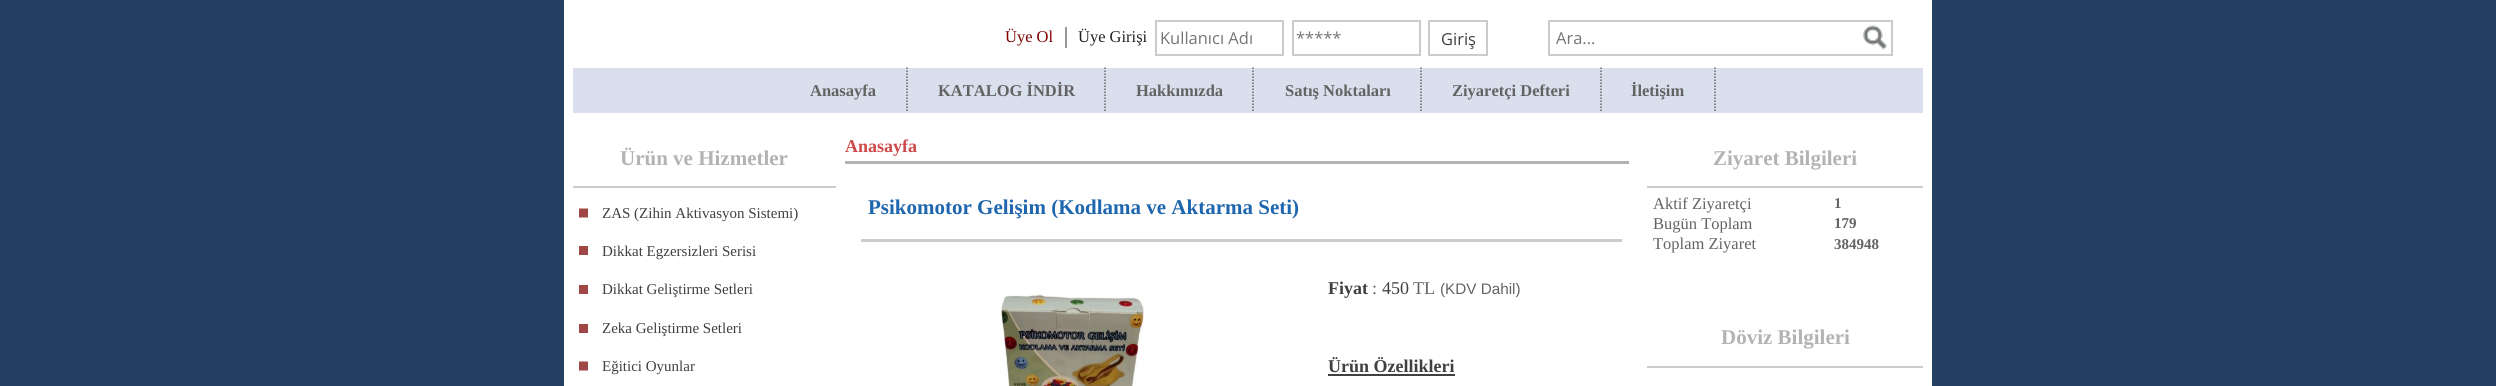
#include <cairo.h>
#include <math.h>
#include <stddef.h>


static void set_color(cairo_t *cr, unsigned color) {
    cairo_set_source_rgb(cr, (color >> 16) / 255.0, (color >> 8 & 255) / 255.0, (color & 255) / 255.0);
}

static void draw_text(cairo_t *cr, double x, double y, const char *s, const char *family, double size, int italic, int bold, unsigned color) {
    cairo_select_font_face(cr, family, italic ? CAIRO_FONT_SLANT_ITALIC : CAIRO_FONT_SLANT_NORMAL,
        bold ? CAIRO_FONT_WEIGHT_BOLD : CAIRO_FONT_WEIGHT_NORMAL);
    cairo_set_font_size(cr, size);
    set_color(cr, color);
    cairo_move_to(cr, x, y);
    cairo_show_text(cr, s);
}

static void fill_rect(cairo_t *cr, double x, double y, double w, double h, unsigned color) {
    set_color(cr, color);
    cairo_rectangle(cr, x, y, w, h);
    cairo_fill(cr);
}

static void draw_image(cairo_t *cr, const char *path, double x, double y, double w, double h) {
    cairo_surface_t *image = cairo_image_surface_create_from_png(path);
    cairo_save(cr);
    cairo_set_source_surface(cr, image, x, y);
    cairo_rectangle(cr, x, y, w, h);
    cairo_fill(cr);
    cairo_restore(cr);
    cairo_surface_destroy(image);
}

int main(void) {
    cairo_surface_t *surface = cairo_image_surface_create(CAIRO_FORMAT_RGB24, 2496, 386);
    cairo_t *cr = cairo_create(surface);
    cairo_font_options_t *options = cairo_font_options_create();
    cairo_font_options_set_hint_metrics(options, CAIRO_HINT_METRICS_OFF);
    cairo_font_options_set_hint_style(options, CAIRO_HINT_STYLE_NONE);
    cairo_set_font_options(cr, options);
    cairo_set_miter_limit(cr, 4);
    set_color(cr, 0x243E61);
    cairo_paint(cr);
    fill_rect(cr, 564, 0, 1368, 386, 0xFFFFFF);
    fill_rect(cr, 1065, 27, 2, 21, 0x999999);
    draw_text(cr, 1005, 42, "Üye Ol", "Liberation Serif", 16.5, 0, 0, 0x800000);
    draw_text(cr, 1078, 42, "Üye Girişi", "Liberation Serif", 16.5, 0, 0, 0x222222);
    cairo_rectangle(cr, 1156, 21, 127, 34);
    set_color(cr, 0xCCCCCC);
    cairo_stroke(cr);
    draw_text(cr, 1160, 44, "Kullanıcı Adı", "Open Sans", 16.5, 0, 0, 0x757575);
    cairo_rectangle(cr, 1293, 21, 127, 34);
    set_color(cr, 0xCCCCCC);
    cairo_stroke(cr);
    draw_text(cr, 1296, 44, "*****", "Open Sans", 16.5, 0, 0, 0x757575);
    cairo_rectangle(cr, 1429, 21, 58, 34);
    set_color(cr, 0xCCCCCC);
    cairo_stroke(cr);
    draw_text(cr, 1441, 45, "Giriş", "Open Sans", 16.5, 0, 0, 0x404040);
    cairo_rectangle(cr, 1549, 21, 343, 34);
    set_color(cr, 0xCCCCCC);
    cairo_stroke(cr);
    draw_text(cr, 1556, 44, "Ara...", "Open Sans", 16.5, 0, 0, 0x757575);
    draw_image(cr, "assets/img1.png", 1863, 25, 24, 25);
    fill_rect(cr, 573, 68, 1350, 45, 0xD9DFED);
    cairo_new_path(cr);
    cairo_move_to(cr, 907, 67.5);
    cairo_line_to(cr, 907, 111);
    set_color(cr, 0x666666);
    cairo_set_line_width(cr, 1.5);
    cairo_set_dash(cr, (double[]){1.5, 1.5}, 2, 0);
    cairo_stroke(cr);
    draw_text(cr, 810, 96, "Anasayfa", "Liberation Serif", 16.5, 0, 1, 0x636363);
    cairo_new_path(cr);
    cairo_move_to(cr, 1105, 67.5);
    cairo_line_to(cr, 1105, 111);
    set_color(cr, 0x666666);
    cairo_stroke(cr);
    draw_text(cr, 938, 96, "KATALOG İNDİR", "Liberation Serif", 16.5, 0, 1, 0x636363);
    cairo_new_path(cr);
    cairo_move_to(cr, 1253, 67.5);
    cairo_line_to(cr, 1253, 111);
    set_color(cr, 0x666666);
    cairo_stroke(cr);
    draw_text(cr, 1136, 96, "Hakkımızda", "Liberation Serif", 16.5, 0, 1, 0x636363);
    cairo_new_path(cr);
    cairo_move_to(cr, 1421, 67.5);
    cairo_line_to(cr, 1421, 111);
    set_color(cr, 0x666666);
    cairo_stroke(cr);
    draw_text(cr, 1285, 96, "Satış Noktaları", "Liberation Serif", 16.5, 0, 1, 0x636363);
    cairo_new_path(cr);
    cairo_move_to(cr, 1601, 67.5);
    cairo_line_to(cr, 1601, 111);
    set_color(cr, 0x666666);
    cairo_stroke(cr);
    draw_text(cr, 1452, 96, "Ziyaretçi Defteri", "Liberation Serif", 16.5, 0, 1, 0x636363);
    cairo_new_path(cr);
    cairo_move_to(cr, 1715, 67.5);
    cairo_line_to(cr, 1715, 111);
    set_color(cr, 0x666666);
    cairo_stroke(cr);
    draw_text(cr, 1631, 96, "İletişim", "Liberation Serif", 16.5, 0, 1, 0x636363);
    fill_rect(cr, 573, 186, 263, 2, 0xCCCCCC);
    draw_text(cr, 620, 165, "Ürün ve Hizmetler", "Liberation Serif", 21, 0, 1, 0xB3B3B3);
    draw_image(cr, "assets/img2.png", 579, 208, 9, 10);
    draw_text(cr, 602, 218, "ZAS (Zihin Aktivasyon Sistemi)", "Liberation Serif", 15, 0, 0, 0x404040);
    draw_image(cr, "assets/img3.png", 579, 246, 9, 9);
    draw_text(cr, 602, 256, "Dikkat Egzersizleri Serisi", "Liberation Serif", 15, 0, 0, 0x404040);
    draw_image(cr, "assets/img3.png", 579, 285, 9, 9);
    draw_text(cr, 602, 294, "Dikkat Geliştirme Setleri", "Liberation Serif", 15, 0, 0, 0x404040);
    draw_image(cr, "assets/img3.png", 579, 324, 9, 9);
    draw_text(cr, 602, 333, "Zeka Geliştirme Setleri", "Liberation Serif", 15, 0, 0, 0x404040);
    draw_image(cr, "assets/img2.png", 579, 361, 9, 10);
    draw_text(cr, 602, 371, "Eğitici Oyunlar", "Liberation Serif", 15, 0, 0, 0x404040);
    fill_rect(cr, 845, 161, 784, 3, 0xB3B3B3);
    draw_text(cr, 845, 152, "Anasayfa", "Liberation Serif", 18, 0, 1, 0xCE494A);
    draw_text(cr, 868, 214, "Psikomotor Gelişim (Kodlama ve Aktarma Seti)", "Liberation Serif", 21, 0, 1, 0x1E66AE);
    fill_rect(cr, 861, 239, 761, 3, 0xCCCCCC);
    draw_image(cr, "assets/img4.png", 999, 291, 145, 95);
    draw_text(cr, 1328, 294, "Fiyat", "Liberation Serif", 18, 0, 1, 0x404040);
    draw_text(cr, 1372, 294, ":", "Liberation Serif", 18, 0, 0, 0x636363);
    draw_text(cr, 1382, 294, "450", "Liberation Serif", 18, 0, 0, 0x404040);
    draw_text(cr, 1413, 294, "TL", "Liberation Serif", 18, 0, 0, 0x636363);
    draw_text(cr, 1440, 294, "(KDV Dahil)", "Liberation Sans", 15.25, 0, 0, 0x636363);
    draw_text(cr, 1328, 372, "Ürün Özellikleri", "Liberation Serif", 18, 0, 1, 0x404040);
    fill_rect(cr, 1328, 374, 127, 2, 0x404040);
    fill_rect(cr, 1647, 186, 276, 2, 0xCCCCCC);
    draw_text(cr, 1713, 165, "Ziyaret Bilgileri", "Liberation Serif", 21, 0, 1, 0xB3B3B3);
    draw_text(cr, 1653, 209, "Aktif Ziyaretçi", "Liberation Serif", 16.5, 0, 0, 0x636363);
    draw_text(cr, 1834, 208, "1", "Liberation Serif", 15, 0, 1, 0x636363);
    draw_text(cr, 1653, 229, "Bugün Toplam", "Liberation Serif", 16.5, 0, 0, 0x636363);
    draw_text(cr, 1834, 228, "179", "Liberation Serif", 15, 0, 1, 0x636363);
    draw_text(cr, 1653, 249, "Toplam Ziyaret", "Liberation Serif", 16.5, 0, 0, 0x636363);
    draw_text(cr, 1834, 249, "384948", "Liberation Serif", 15, 0, 1, 0x636363);
    fill_rect(cr, 1647, 366, 276, 2, 0xCCCCCC);
    draw_text(cr, 1721, 344, "Döviz Bilgileri", "Liberation Serif", 21, 0, 1, 0xB3B3B3);
    cairo_surface_write_to_png(surface, "output.png");
    cairo_font_options_destroy(options);
    cairo_destroy(cr);
    cairo_surface_destroy(surface);
    return 0;
}
